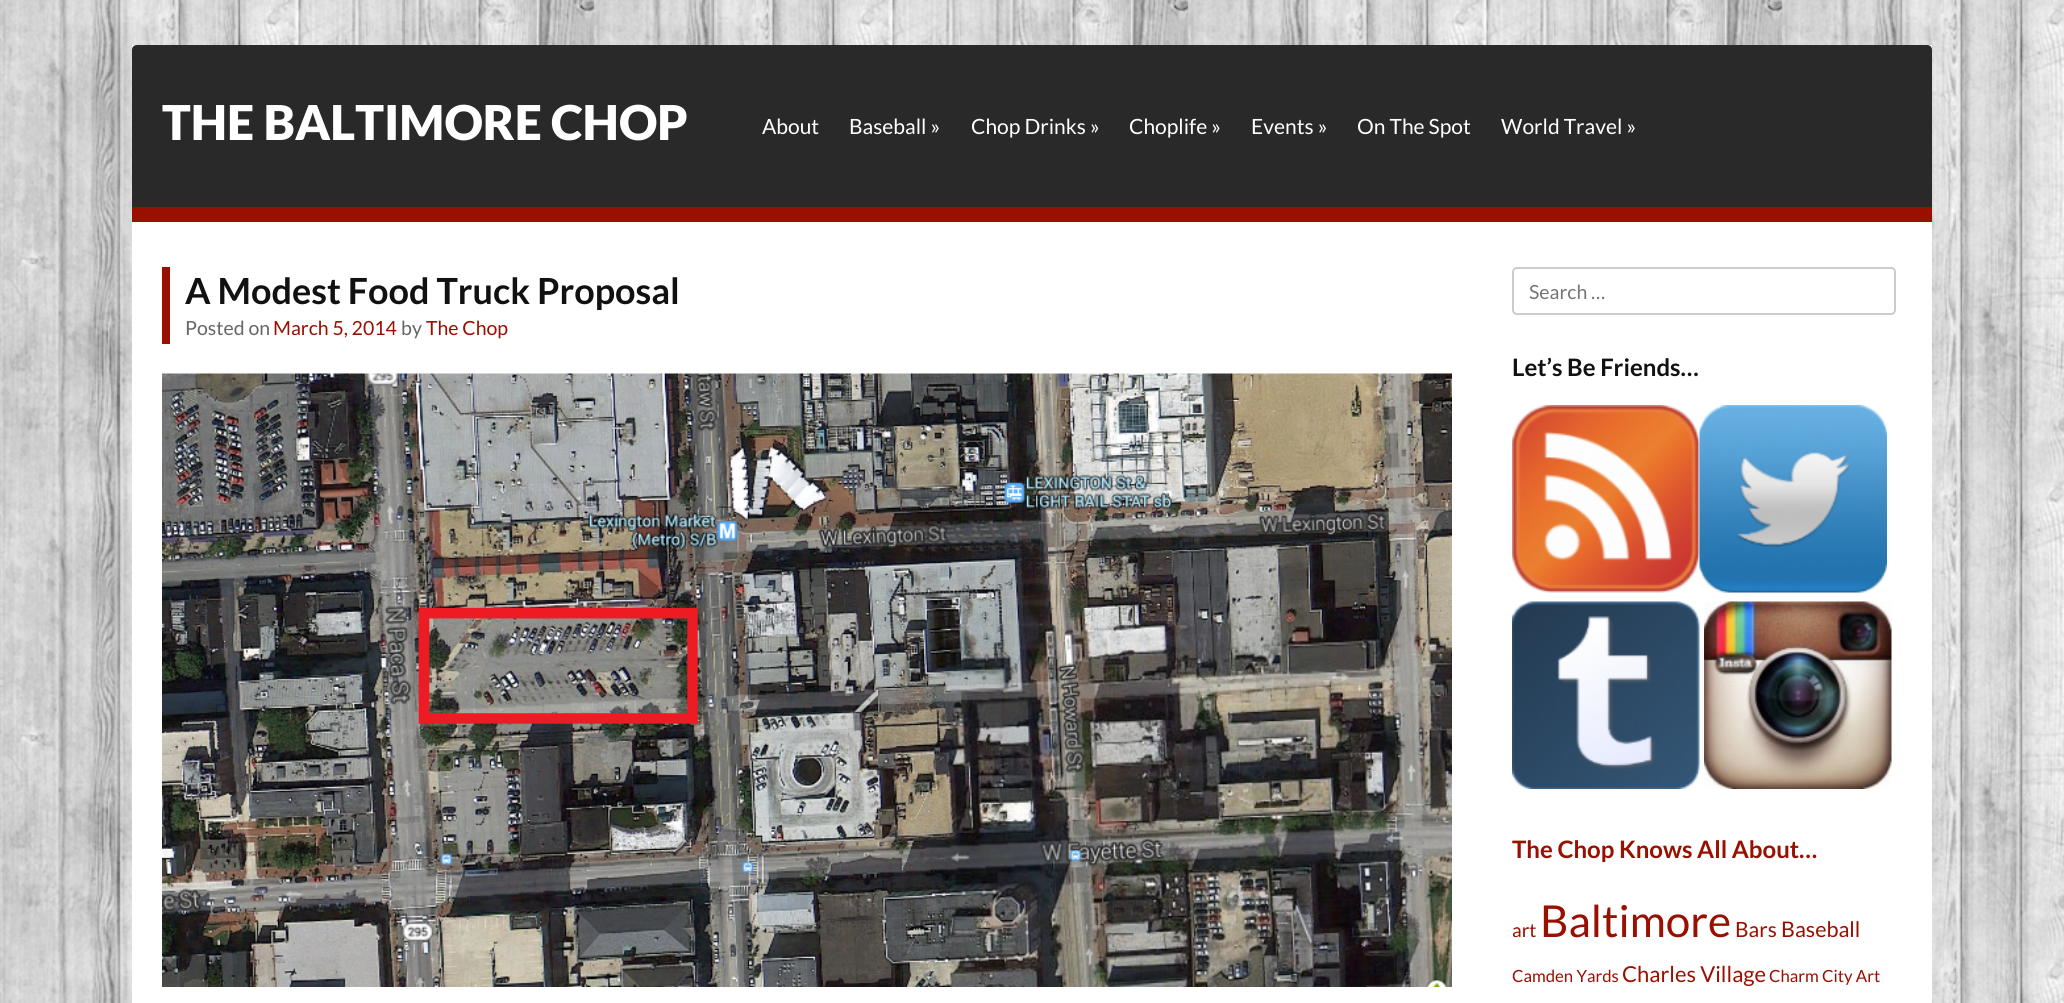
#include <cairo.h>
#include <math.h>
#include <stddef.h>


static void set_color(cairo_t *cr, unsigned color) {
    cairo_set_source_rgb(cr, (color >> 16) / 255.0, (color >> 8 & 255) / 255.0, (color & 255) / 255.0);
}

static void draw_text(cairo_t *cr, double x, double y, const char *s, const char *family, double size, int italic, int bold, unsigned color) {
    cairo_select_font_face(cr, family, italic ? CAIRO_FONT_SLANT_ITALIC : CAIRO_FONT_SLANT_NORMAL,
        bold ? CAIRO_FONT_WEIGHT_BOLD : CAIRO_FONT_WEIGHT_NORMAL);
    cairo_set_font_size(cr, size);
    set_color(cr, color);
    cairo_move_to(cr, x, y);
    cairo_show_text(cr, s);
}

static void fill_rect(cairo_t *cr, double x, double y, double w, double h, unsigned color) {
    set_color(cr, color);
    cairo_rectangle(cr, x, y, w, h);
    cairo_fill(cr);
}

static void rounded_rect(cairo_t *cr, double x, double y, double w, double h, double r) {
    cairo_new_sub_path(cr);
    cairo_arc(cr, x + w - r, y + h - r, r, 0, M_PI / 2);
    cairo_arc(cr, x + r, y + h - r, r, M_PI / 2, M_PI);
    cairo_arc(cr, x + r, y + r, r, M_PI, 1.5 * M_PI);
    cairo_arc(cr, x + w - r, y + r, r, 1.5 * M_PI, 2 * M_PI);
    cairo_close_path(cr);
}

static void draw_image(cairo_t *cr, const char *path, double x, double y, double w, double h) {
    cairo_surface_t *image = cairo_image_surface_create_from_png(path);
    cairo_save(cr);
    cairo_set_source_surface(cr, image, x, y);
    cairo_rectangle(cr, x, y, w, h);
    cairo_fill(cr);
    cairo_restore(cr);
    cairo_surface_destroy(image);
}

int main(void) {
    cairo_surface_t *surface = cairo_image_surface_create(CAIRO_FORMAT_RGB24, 2064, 1003);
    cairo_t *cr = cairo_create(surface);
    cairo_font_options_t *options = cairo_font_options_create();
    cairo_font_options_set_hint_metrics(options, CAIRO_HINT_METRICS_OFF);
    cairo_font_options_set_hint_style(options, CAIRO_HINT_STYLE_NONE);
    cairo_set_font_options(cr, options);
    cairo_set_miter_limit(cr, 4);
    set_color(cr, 0xFFFFFF);
    cairo_paint(cr);
    draw_image(cr, "assets/img1.png", 0, 0, 2064, 1003);
    fill_rect(cr, 132, 45, 1800, 958, 0xFFFFFF);
    set_color(cr, 0x292929);
    cairo_new_path(cr);
    cairo_move_to(cr, 137, 45);
    cairo_line_to(cr, 1927, 45);
    cairo_curve_to(cr, 1930, 45, 1932, 47, 1932, 50);
    cairo_line_to(cr, 1932, 222);
    cairo_line_to(cr, 132, 222);
    cairo_line_to(cr, 132, 50);
    cairo_curve_to(cr, 132, 47, 134, 45, 137, 45);
    cairo_close_path(cr);
    cairo_fill(cr);
    fill_rect(cr, 132, 207, 1800, 15, 0x990F00);
    draw_text(cr, 162, 140, "THE BALTIMORE CHOP", "Lato Black", 48, 0, 0, 0xFFFFFF);
    draw_text(cr, 762, 134, "About", "Lato", 21, 0, 0, 0xFFFFFF);
    draw_text(cr, 849, 134, "Baseball »", "Lato", 21, 0, 0, 0xFFFFFF);
    draw_text(cr, 971, 134, "Chop Drinks »", "Lato", 21, 0, 0, 0xFFFFFF);
    draw_text(cr, 1129, 134, "Choplife »", "Lato", 21, 0, 0, 0xFFFFFF);
    draw_text(cr, 1251, 134, "Events »", "Lato", 21, 0, 0, 0xFFFFFF);
    draw_text(cr, 1357, 134, "On The Spot", "Lato", 21, 0, 0, 0xFFFFFF);
    draw_text(cr, 1501, 134, "World Travel »", "Lato", 21, 0, 0, 0xFFFFFF);
    fill_rect(cr, 162, 267, 8, 77, 0x990F00);
    draw_text(cr, 185, 304, "A Modest Food Truck Proposal", "Lato", 36, 0, 1, 0x111111);
    draw_text(cr, 185, 335, "Posted on", "Lato", 19.5, 0, 0, 0x666666);
    draw_text(cr, 273, 335, "March 5, 2014", "Lato", 19.5, 0, 0, 0x990F00);
    draw_text(cr, 401, 335, "by", "Lato", 19.5, 0, 0, 0x666666);
    draw_text(cr, 426, 335, "The Chop", "Lato", 19.5, 0, 0, 0x990F00);
    draw_image(cr, "assets/img2.png", 162, 373, 1290, 614);
    rounded_rect(cr, 1513, 268, 382, 46, 4);
    set_color(cr, 0xCCCCCC);
    cairo_stroke(cr);
    draw_text(cr, 1529, 299, "Search …", "Lato", 19.5, 0, 0, 0x757575);
    draw_text(cr, 1512, 376, "Let’s Be Friends…", "Lato", 24, 0, 1, 0x111111);
    draw_image(cr, "assets/img3.png", 1512, 405, 188, 188);
    draw_image(cr, "assets/img4.png", 1699, 405, 188, 188);
    draw_image(cr, "assets/img5.png", 1512, 601, 188, 188);
    draw_image(cr, "assets/img6.png", 1704, 601, 188, 188);
    draw_text(cr, 1512, 858, "The Chop Knows All About…", "Lato", 24, 0, 1, 0x990F00);
    draw_text(cr, 1512, 937, "art", "Lato", 19, 0, 0, 0x990F00);
    draw_text(cr, 1540, 937, "Baltimore", "Lato", 44, 0, 0, 0x990F00);
    draw_text(cr, 1735, 937, "Bars", "Lato", 21, 0, 0, 0x990F00);
    draw_text(cr, 1781, 937, "Baseball", "Lato", 21.5, 0, 0, 0x990F00);
    draw_text(cr, 1512, 982, "Camden Yards", "Lato", 16.75, 0, 0, 0x990F00);
    draw_text(cr, 1622, 982, "Charles Village", "Lato", 22, 0, 0, 0x990F00);
    draw_text(cr, 1769, 982, "Charm City Art", "Lato", 16.75, 0, 0, 0x990F00);
    cairo_surface_write_to_png(surface, "output.png");
    cairo_font_options_destroy(options);
    cairo_destroy(cr);
    cairo_surface_destroy(surface);
    return 0;
}
